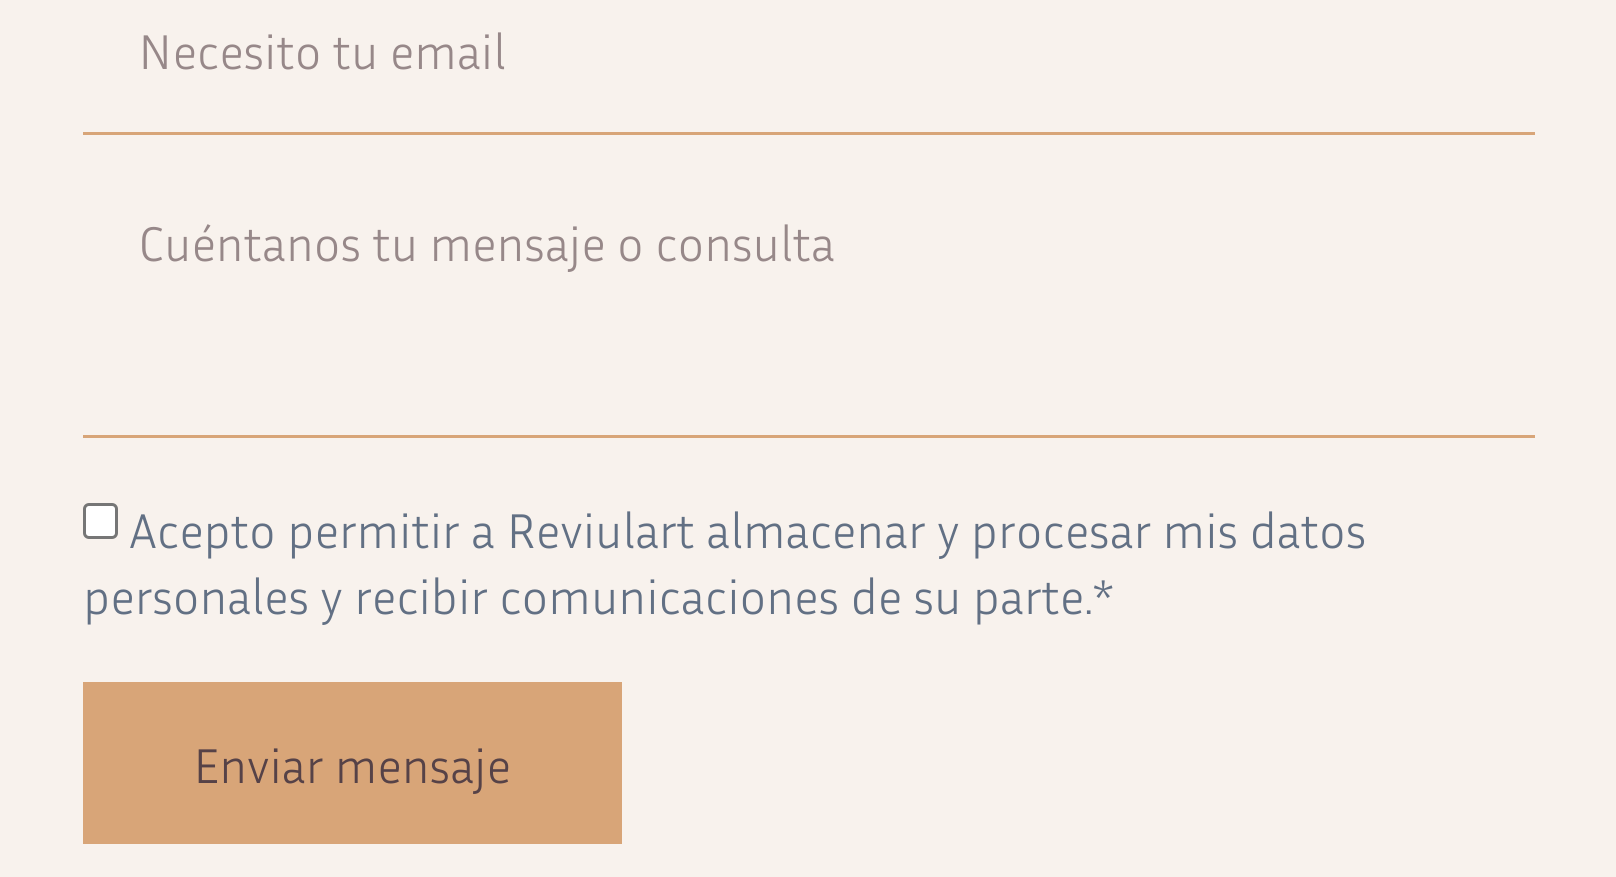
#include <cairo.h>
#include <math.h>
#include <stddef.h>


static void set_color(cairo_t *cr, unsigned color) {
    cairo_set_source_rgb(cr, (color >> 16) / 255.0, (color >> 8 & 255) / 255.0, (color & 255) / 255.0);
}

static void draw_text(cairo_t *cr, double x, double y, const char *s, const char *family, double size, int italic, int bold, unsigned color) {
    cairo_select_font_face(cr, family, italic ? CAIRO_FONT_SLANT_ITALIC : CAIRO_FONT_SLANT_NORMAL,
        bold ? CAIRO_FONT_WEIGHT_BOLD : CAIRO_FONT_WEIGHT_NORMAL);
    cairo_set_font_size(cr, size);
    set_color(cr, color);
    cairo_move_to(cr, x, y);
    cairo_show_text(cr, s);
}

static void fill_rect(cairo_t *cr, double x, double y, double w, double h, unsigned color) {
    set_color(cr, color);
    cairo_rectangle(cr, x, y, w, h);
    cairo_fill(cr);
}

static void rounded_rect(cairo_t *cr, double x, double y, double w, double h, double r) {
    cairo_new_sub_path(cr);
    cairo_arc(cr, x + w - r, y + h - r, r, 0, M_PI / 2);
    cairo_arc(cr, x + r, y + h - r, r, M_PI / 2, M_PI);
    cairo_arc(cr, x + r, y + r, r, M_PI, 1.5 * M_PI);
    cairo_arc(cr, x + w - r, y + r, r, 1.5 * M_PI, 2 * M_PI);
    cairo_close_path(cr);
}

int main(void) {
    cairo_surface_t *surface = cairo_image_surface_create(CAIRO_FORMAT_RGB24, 1616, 877);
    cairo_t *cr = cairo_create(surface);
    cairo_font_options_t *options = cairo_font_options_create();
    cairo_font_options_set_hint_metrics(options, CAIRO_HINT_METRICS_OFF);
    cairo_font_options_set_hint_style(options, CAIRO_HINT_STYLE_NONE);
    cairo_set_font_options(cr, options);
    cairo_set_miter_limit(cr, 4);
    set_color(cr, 0xF8F2ED);
    cairo_paint(cr);
    fill_rect(cr, 83, 132, 1452, 3, 0xD8A578);
    draw_text(cr, 138, 69, "Necesito tu email", "Inria Sans Light", 49.5, 0, 0, 0x978889);
    fill_rect(cr, 83, 435, 1452, 3, 0xD8A578);
    draw_text(cr, 138, 261, "Cuéntanos tu mensaje o consulta", "Inria Sans Light", 49.5, 0, 0, 0x978889);
    set_color(cr, 0xFFFFFF);
    rounded_rect(cr, 84.5, 504.5, 32, 33, 4.5);
    cairo_fill_preserve(cr);
    set_color(cr, 0x767676);
    cairo_set_line_width(cr, 3);
    cairo_stroke(cr);
    draw_text(cr, 129, 548, "Acepto permitir a Reviulart almacenar y procesar mis datos", "Inria Sans Light", 49.5, 0, 0, 0x627084);
    draw_text(cr, 83, 614, "personales y recibir comunicaciones de su parte.*", "Inria Sans Light", 49.5, 0, 0, 0x627084);
    fill_rect(cr, 83, 682, 539, 162, 0xD8A578);
    draw_text(cr, 193, 783, "Enviar mensaje", "Inria Sans Light", 49.5, 0, 0, 0x564247);
    cairo_surface_write_to_png(surface, "output.png");
    cairo_font_options_destroy(options);
    cairo_destroy(cr);
    cairo_surface_destroy(surface);
    return 0;
}
